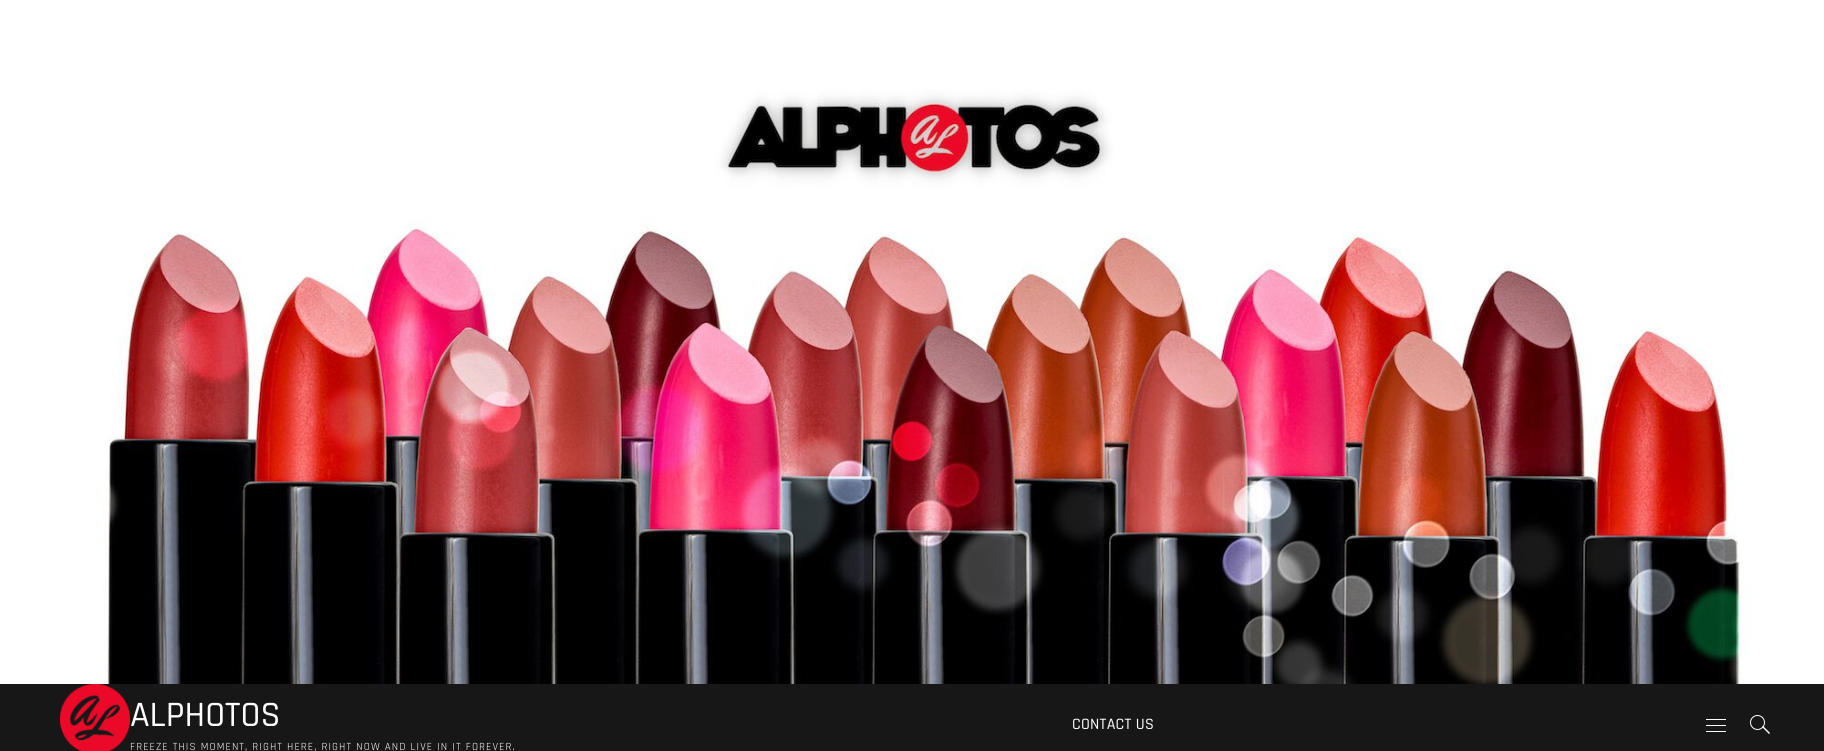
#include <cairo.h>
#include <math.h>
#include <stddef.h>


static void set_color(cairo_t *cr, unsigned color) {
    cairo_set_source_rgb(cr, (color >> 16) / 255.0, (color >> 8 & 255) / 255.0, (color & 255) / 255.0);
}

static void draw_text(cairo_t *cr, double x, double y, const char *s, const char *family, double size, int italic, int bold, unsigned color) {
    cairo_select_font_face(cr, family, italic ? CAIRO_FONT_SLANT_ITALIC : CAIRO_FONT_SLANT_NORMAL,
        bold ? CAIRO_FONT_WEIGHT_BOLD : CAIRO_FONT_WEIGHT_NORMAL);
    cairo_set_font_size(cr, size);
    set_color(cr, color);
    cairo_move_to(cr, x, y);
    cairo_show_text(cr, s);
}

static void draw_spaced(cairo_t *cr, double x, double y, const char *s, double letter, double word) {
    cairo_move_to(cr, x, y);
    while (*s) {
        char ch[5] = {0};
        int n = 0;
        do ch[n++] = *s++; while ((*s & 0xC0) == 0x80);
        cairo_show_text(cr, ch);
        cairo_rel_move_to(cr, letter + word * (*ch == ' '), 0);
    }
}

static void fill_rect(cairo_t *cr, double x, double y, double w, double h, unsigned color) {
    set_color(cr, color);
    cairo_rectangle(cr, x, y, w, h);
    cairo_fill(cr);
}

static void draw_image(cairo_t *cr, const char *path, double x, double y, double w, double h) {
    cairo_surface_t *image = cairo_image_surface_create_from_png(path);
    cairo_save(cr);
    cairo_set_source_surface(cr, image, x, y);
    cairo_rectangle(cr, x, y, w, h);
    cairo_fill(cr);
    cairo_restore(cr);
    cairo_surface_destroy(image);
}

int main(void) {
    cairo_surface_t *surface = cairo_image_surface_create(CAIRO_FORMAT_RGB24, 1824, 751);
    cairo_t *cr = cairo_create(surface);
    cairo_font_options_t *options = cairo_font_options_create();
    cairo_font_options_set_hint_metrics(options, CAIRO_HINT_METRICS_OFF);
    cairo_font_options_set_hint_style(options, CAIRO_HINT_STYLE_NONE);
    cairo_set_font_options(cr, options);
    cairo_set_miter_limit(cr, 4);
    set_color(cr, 0xFFFFFF);
    cairo_paint(cr);
    draw_image(cr, "assets/img1.png", 0, 0, 1824, 684);
    fill_rect(cr, 0, 684, 1824, 67, 0x171717);
    draw_image(cr, "assets/img2.png", 60, 684, 70, 67);
    draw_text(cr, 130, 726, "ALPHOTOS", "Rajdhani Medium", 36, 0, 0, 0xFFFFFF);
    cairo_select_font_face(cr, "Rajdhani", CAIRO_FONT_SLANT_NORMAL, CAIRO_FONT_WEIGHT_NORMAL);
    cairo_set_font_size(cr, 11);
    draw_spaced(cr, 130, 750, "FREEZE THIS MOMENT, RIGHT HERE, RIGHT NOW AND LIVE IN IT FOREVER.", 1.1, 0);
    cairo_select_font_face(cr, "Rajdhani Medium", CAIRO_FONT_SLANT_NORMAL, CAIRO_FONT_WEIGHT_NORMAL);
    cairo_set_font_size(cr, 16);
    draw_spaced(cr, 1072, 729, "CONTACT US", 0.25, 0);
    fill_rect(cr, 1706, 725, 20, 1, 0xFFFFFF);
    fill_rect(cr, 1706, 719, 20, 1, 0xFFFFFF);
    fill_rect(cr, 1706, 731, 20, 1, 0xFFFFFF);
    cairo_new_path(cr);
    cairo_arc(cr, 1757.5, 722.5, 7, 0, 2 * M_PI);
    cairo_set_line_width(cr, 1);
    cairo_stroke(cr);
    cairo_new_path(cr);
    cairo_move_to(cr, 1762, 727);
    cairo_line_to(cr, 1763, 726);
    cairo_line_to(cr, 1770, 733);
    cairo_line_to(cr, 1769, 734);
    cairo_close_path(cr);
    cairo_fill(cr);
    cairo_surface_write_to_png(surface, "output.png");
    cairo_font_options_destroy(options);
    cairo_destroy(cr);
    cairo_surface_destroy(surface);
    return 0;
}
